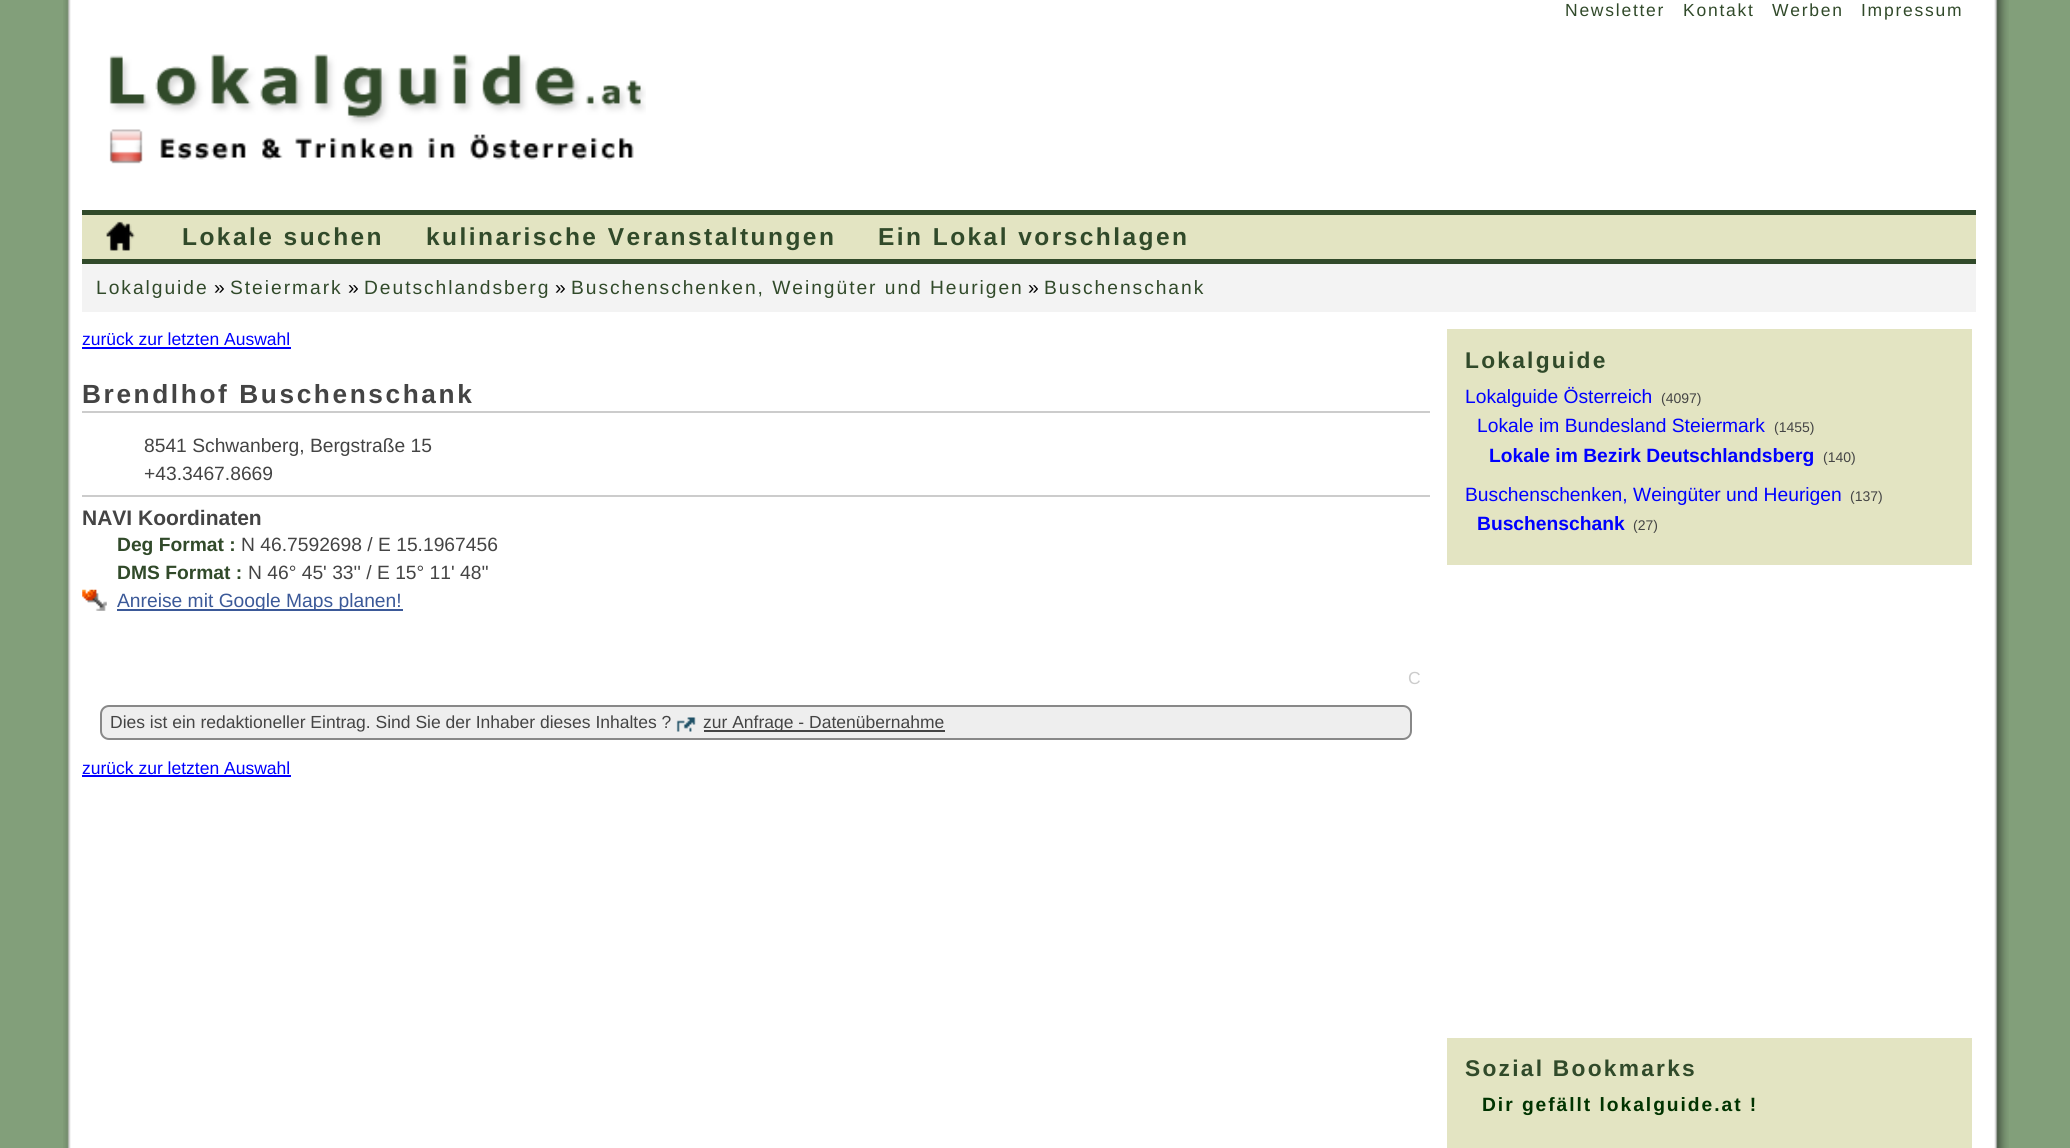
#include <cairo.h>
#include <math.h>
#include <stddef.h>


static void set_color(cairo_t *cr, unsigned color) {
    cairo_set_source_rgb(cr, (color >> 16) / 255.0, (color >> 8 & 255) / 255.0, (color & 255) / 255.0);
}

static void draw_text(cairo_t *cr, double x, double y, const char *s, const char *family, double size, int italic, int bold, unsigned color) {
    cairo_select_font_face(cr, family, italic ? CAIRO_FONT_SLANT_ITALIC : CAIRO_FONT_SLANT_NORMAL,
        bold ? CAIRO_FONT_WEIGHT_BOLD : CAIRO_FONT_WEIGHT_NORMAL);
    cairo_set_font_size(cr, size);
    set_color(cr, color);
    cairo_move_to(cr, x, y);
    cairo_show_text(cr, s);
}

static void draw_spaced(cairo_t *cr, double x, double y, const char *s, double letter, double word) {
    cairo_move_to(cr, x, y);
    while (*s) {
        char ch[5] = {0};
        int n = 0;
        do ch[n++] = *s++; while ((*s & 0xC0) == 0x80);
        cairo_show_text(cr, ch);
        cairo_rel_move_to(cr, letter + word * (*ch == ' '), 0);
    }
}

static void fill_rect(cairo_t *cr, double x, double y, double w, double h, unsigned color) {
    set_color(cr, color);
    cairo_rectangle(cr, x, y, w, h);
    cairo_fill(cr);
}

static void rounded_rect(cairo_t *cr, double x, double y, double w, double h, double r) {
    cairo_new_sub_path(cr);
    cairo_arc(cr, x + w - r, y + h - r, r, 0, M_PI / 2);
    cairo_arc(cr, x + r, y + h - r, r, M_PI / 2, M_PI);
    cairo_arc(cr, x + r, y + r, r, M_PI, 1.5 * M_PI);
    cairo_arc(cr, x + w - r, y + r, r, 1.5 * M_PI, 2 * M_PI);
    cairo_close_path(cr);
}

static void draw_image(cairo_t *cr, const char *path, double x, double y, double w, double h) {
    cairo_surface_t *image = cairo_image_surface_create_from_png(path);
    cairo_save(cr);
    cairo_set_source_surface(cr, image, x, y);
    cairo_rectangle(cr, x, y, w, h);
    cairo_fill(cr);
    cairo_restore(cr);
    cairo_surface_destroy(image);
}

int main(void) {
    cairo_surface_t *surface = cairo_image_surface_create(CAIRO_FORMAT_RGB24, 2070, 1148);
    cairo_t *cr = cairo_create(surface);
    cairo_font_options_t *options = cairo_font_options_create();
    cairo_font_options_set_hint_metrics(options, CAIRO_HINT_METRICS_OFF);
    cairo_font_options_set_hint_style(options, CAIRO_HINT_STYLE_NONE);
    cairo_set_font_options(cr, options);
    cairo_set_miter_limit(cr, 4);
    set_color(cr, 0x829F7A);
    cairo_paint(cr);
    draw_image(cr, "assets/img1.png", 63, 0, 1946, 1148);
    cairo_select_font_face(cr, "Liberation Sans", CAIRO_FONT_SLANT_NORMAL, CAIRO_FONT_WEIGHT_NORMAL);
    cairo_set_font_size(cr, 17.5);
    set_color(cr, 0x314A2A);
    draw_spaced(cr, 1565, 16, "Newsletter", 1.75, 0);
    draw_spaced(cr, 1683, 16, "Kontakt", 1.75, 0);
    draw_spaced(cr, 1772, 16, "Werben", 1.75, 0);
    draw_spaced(cr, 1861, 16, "Impressum", 1.75, 0);
    draw_image(cr, "assets/img2.png", 109, 54, 537, 110);
    fill_rect(cr, 82, 210, 1894, 5, 0x314A2A);
    fill_rect(cr, 82, 259, 1894, 5, 0x314A2A);
    fill_rect(cr, 82, 215, 1894, 44, 0xE3E4C2);
    draw_image(cr, "assets/img3.png", 106, 221, 29, 30);
    cairo_select_font_face(cr, "Liberation Sans", CAIRO_FONT_SLANT_NORMAL, CAIRO_FONT_WEIGHT_BOLD);
    cairo_set_font_size(cr, 24.5);
    set_color(cr, 0x314A2A);
    draw_spaced(cr, 182, 245, "Lokale suchen", 2.45, 0);
    draw_spaced(cr, 426, 245, "kulinarische Veranstaltungen", 2.45, 0);
    draw_spaced(cr, 878, 245, "Ein Lokal vorschlagen", 2.45, 0);
    fill_rect(cr, 82, 264, 1894, 48, 0xF3F3F3);
    cairo_select_font_face(cr, "Liberation Sans", CAIRO_FONT_SLANT_NORMAL, CAIRO_FONT_WEIGHT_NORMAL);
    cairo_set_font_size(cr, 19.25);
    set_color(cr, 0x314A2A);
    draw_spaced(cr, 96, 294, "Lokalguide", 1.95, 0);
    draw_text(cr, 214, 294, "»", "Liberation Sans", 19.25, 0, 0, 0x000000);
    set_color(cr, 0x314A2A);
    draw_spaced(cr, 230, 294, "Steiermark", 1.95, 0);
    draw_text(cr, 348, 294, "»", "Liberation Sans", 19.25, 0, 0, 0x000000);
    set_color(cr, 0x314A2A);
    draw_spaced(cr, 364, 294, "Deutschlandsberg", 1.95, 0);
    draw_text(cr, 555, 294, "»", "Liberation Sans", 19.25, 0, 0, 0x000000);
    set_color(cr, 0x314A2A);
    draw_spaced(cr, 571, 294, "Buschenschenken, Weingüter und Heurigen", 1.95, 0);
    draw_text(cr, 1028, 294, "»", "Liberation Sans", 19.25, 0, 0, 0x000000);
    set_color(cr, 0x314A2A);
    draw_spaced(cr, 1044, 294, "Buschenschank", 1.95, 0);
    draw_text(cr, 82, 345, "zurück zur letzten Auswahl", "Liberation Sans", 17.5, 0, 0, 0x0000FF);
    fill_rect(cr, 82, 347, 209, 2, 0x0000FF);
    fill_rect(cr, 82, 411, 1348, 2, 0xCCCCCC);
    cairo_select_font_face(cr, "Liberation Sans", CAIRO_FONT_SLANT_NORMAL, CAIRO_FONT_WEIGHT_BOLD);
    cairo_set_font_size(cr, 26.25);
    set_color(cr, 0x444444);
    draw_spaced(cr, 82, 403, "Brendlhof Buschenschank", 2.6, 0);
    draw_text(cr, 144, 452, "8541 Schwanberg, Bergstraße 15", "Liberation Sans", 19.25, 0, 0, 0x444444);
    draw_text(cr, 144, 480, "+43.3467.8669", "Liberation Sans", 19.25, 0, 0, 0x444444);
    fill_rect(cr, 82, 495, 1348, 2, 0xCCCCCC);
    draw_text(cr, 82, 525, "NAVI Koordinaten", "Liberation Sans", 21, 0, 1, 0x444444);
    draw_text(cr, 117, 551, "Deg Format :", "Liberation Sans", 19.25, 0, 1, 0x314A2A);
    draw_text(cr, 241, 551, "N 46.7592698 / E 15.1967456", "Liberation Sans", 19.25, 0, 0, 0x444444);
    draw_text(cr, 117, 579, "DMS Format :", "Liberation Sans", 19.25, 0, 1, 0x314A2A);
    draw_text(cr, 248, 579, "N 46° 45' 33'' / E 15° 11' 48''", "Liberation Sans", 19.25, 0, 0, 0x444444);
    draw_image(cr, "assets/img4.png", 82, 589, 25, 22);
    fill_rect(cr, 117, 609, 286, 2, 0x3B5998);
    draw_text(cr, 117, 607, "Anreise mit Google Maps planen!", "Liberation Sans", 19.25, 0, 0, 0x3B5998);
    draw_text(cr, 1408, 684, "C", "Liberation Sans", 17.5, 0, 0, 0xCCCCCC);
    set_color(cr, 0xEEEEEE);
    rounded_rect(cr, 101, 706, 1310, 33, 8);
    cairo_fill_preserve(cr);
    set_color(cr, 0x888888);
    cairo_stroke(cr);
    draw_text(cr, 110, 728, "Dies ist ein redaktioneller Eintrag. Sind Sie der Inhaber dieses Inhaltes ?", "Liberation Sans", 17.5, 0, 0, 0x444444);
    draw_image(cr, "assets/img5.png", 676, 717, 20, 15);
    fill_rect(cr, 704, 730, 241, 2, 0x444444);
    draw_text(cr, 703, 728, "zur Anfrage - Datenübernahme", "Liberation Sans", 17.5, 0, 0, 0x444444);
    draw_text(cr, 82, 774, "zurück zur letzten Auswahl", "Liberation Sans", 17.5, 0, 0, 0x0000FF);
    fill_rect(cr, 82, 775, 209, 2, 0x0000FF);
    fill_rect(cr, 1447, 329, 525, 236, 0xE3E4C2);
    cairo_select_font_face(cr, "Liberation Sans", CAIRO_FONT_SLANT_NORMAL, CAIRO_FONT_WEIGHT_BOLD);
    cairo_set_font_size(cr, 22.75);
    set_color(cr, 0x314A2A);
    draw_spaced(cr, 1465, 368, "Lokalguide", 2.25, 0);
    draw_text(cr, 1465, 403, "Lokalguide Österreich", "Liberation Sans", 19.25, 0, 0, 0x0000FF);
    draw_text(cr, 1661, 403, "(4097)", "Liberation Sans", 14, 0, 0, 0x444444);
    draw_text(cr, 1477, 432, "Lokale im Bundesland Steiermark", "Liberation Sans", 19.25, 0, 0, 0x0000FF);
    draw_text(cr, 1774, 432, "(1455)", "Liberation Sans", 14, 0, 0, 0x444444);
    draw_text(cr, 1489, 462, "Lokale im Bezirk Deutschlandsberg", "Liberation Sans", 19.25, 0, 1, 0x0000FF);
    draw_text(cr, 1823, 462, "(140)", "Liberation Sans", 14, 0, 0, 0x444444);
    draw_text(cr, 1465, 501, "Buschenschenken, Weingüter und Heurigen", "Liberation Sans", 19.25, 0, 0, 0x0000FF);
    draw_text(cr, 1850, 501, "(137)", "Liberation Sans", 14, 0, 0, 0x444444);
    draw_text(cr, 1477, 530, "Buschenschank", "Liberation Sans", 19.25, 0, 1, 0x0000FF);
    draw_text(cr, 1633, 530, "(27)", "Liberation Sans", 14, 0, 0, 0x444444);
    fill_rect(cr, 1447, 1038, 525, 110, 0xE3E4C2);
    cairo_select_font_face(cr, "Liberation Sans", CAIRO_FONT_SLANT_NORMAL, CAIRO_FONT_WEIGHT_BOLD);
    cairo_set_font_size(cr, 22.75);
    set_color(cr, 0x314A2A);
    draw_spaced(cr, 1465, 1076, "Sozial Bookmarks", 2.25, 0);
    cairo_set_font_size(cr, 19.25);
    set_color(cr, 0x003300);
    draw_spaced(cr, 1482, 1111, "Dir gefällt lokalguide.at !", 1.95, 0);
    cairo_surface_write_to_png(surface, "output.png");
    cairo_font_options_destroy(options);
    cairo_destroy(cr);
    cairo_surface_destroy(surface);
    return 0;
}
